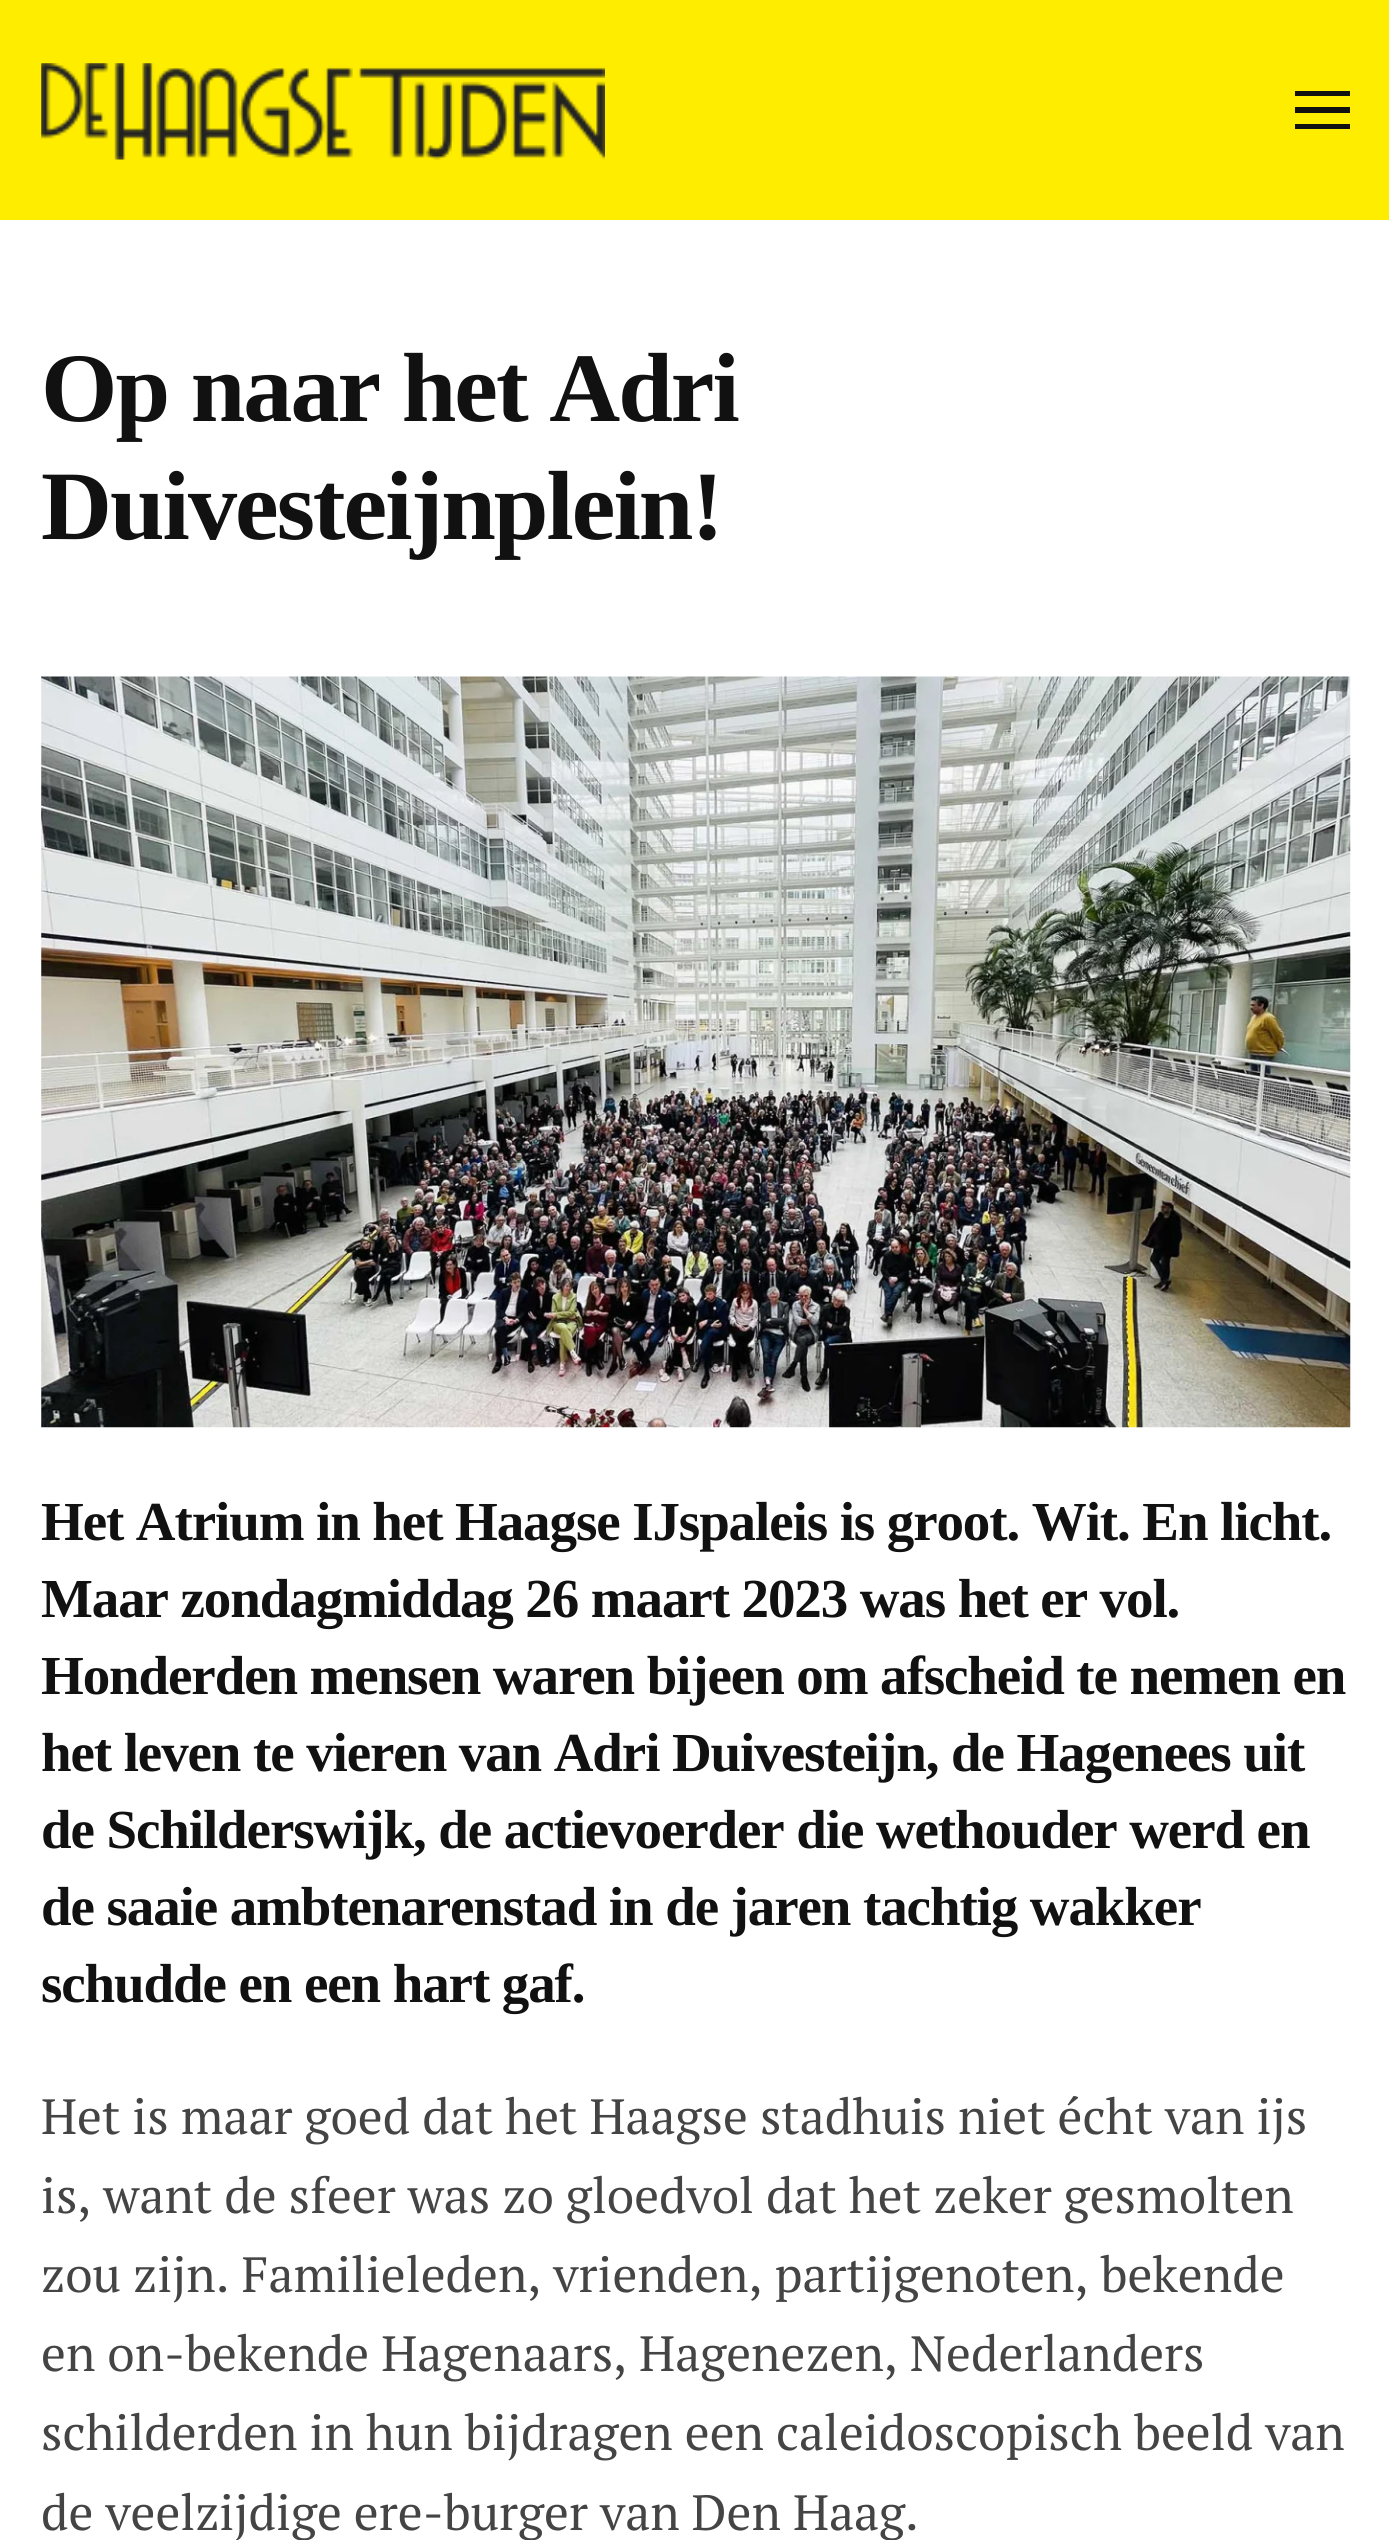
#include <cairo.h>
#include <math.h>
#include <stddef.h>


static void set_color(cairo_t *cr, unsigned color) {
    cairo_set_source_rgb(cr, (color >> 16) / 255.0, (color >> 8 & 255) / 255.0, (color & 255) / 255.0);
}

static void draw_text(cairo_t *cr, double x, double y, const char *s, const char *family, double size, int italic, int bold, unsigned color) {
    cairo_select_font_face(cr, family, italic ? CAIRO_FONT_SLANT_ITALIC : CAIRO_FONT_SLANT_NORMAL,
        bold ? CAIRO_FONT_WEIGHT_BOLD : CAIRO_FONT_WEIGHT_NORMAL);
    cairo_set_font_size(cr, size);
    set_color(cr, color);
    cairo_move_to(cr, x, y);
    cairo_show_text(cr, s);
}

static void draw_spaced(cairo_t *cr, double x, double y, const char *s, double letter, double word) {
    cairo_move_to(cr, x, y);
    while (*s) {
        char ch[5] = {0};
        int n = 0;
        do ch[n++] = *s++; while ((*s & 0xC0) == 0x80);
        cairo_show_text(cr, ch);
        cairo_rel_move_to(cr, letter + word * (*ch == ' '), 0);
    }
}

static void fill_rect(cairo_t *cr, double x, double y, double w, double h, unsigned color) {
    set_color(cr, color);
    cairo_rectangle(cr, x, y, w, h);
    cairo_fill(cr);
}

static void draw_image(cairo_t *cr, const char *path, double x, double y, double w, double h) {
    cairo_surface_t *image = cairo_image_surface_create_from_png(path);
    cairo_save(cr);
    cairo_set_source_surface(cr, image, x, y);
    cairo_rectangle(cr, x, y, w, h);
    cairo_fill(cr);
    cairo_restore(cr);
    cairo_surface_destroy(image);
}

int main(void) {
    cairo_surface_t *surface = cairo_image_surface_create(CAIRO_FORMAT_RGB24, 1389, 2540);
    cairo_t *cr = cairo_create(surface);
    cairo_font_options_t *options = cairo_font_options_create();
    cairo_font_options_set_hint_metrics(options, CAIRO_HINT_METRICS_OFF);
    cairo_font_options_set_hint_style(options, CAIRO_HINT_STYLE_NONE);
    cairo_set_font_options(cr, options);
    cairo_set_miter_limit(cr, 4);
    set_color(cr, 0xFFFFFF);
    cairo_paint(cr);
    fill_rect(cr, 0, 0, 1389, 220, 0xFFED00);
    draw_image(cr, "assets/img1.png", 41, 63, 564, 97);
    fill_rect(cr, 1295, 91, 55, 5, 0x111111);
    fill_rect(cr, 1295, 107, 55, 6, 0x111111);
    fill_rect(cr, 1295, 124, 55, 5, 0x111111);
    cairo_select_font_face(cr, "Liberation Serif", CAIRO_FONT_SLANT_NORMAL, CAIRO_FONT_WEIGHT_BOLD);
    cairo_set_font_size(cr, 98.25);
    draw_spaced(cr, 41, 421, "Op naar het Adri", -2, 0);
    draw_spaced(cr, 41, 539, "Duivesteijnplein!", -2, 0);
    draw_image(cr, "assets/img2.png", 41, 676, 1310, 752);
    cairo_set_font_size(cr, 55);
    draw_spaced(cr, 41, 1540, "Het Atrium in het Haagse IJspaleis is groot. Wit. En licht.", -1.1, 0);
    draw_spaced(cr, 41, 1617, "Maar zondagmiddag 26 maart 2023 was het er vol.", -1.1, 0);
    draw_spaced(cr, 41, 1694, "Honderden mensen waren bijeen om afscheid te nemen en", -1.1, 0);
    draw_spaced(cr, 41, 1771, "het leven te vieren van Adri Duivesteijn, de Hagenees uit", -1.1, 0);
    draw_spaced(cr, 41, 1848, "de Schilderswijk, de actievoerder die wethouder werd en", -1.1, 0);
    draw_spaced(cr, 41, 1925, "de saaie ambtenarenstad in de jaren tachtig wakker", -1.1, 0);
    draw_spaced(cr, 41, 2002, "schudde en een hart gaf.", -1.1, 0);
    draw_text(cr, 41, 2134, "Het is maar goed dat het Haagse stadhuis niet écht van ijs", "PT Serif", 49.5, 0, 0, 0x444444);
    draw_text(cr, 41, 2213, "is, want de sfeer was zo gloedvol dat het zeker gesmolten", "PT Serif", 49.5, 0, 0, 0x444444);
    draw_text(cr, 41, 2292, "zou zijn. Familieleden, vrienden, partijgenoten, bekende", "PT Serif", 49.5, 0, 0, 0x444444);
    draw_text(cr, 41, 2371, "en on-bekende Hagenaars, Hagenezen, Nederlanders", "PT Serif", 49.5, 0, 0, 0x444444);
    draw_text(cr, 41, 2450, "schilderden in hun bijdragen een caleidoscopisch beeld van", "PT Serif", 49.5, 0, 0, 0x444444);
    draw_text(cr, 41, 2530, "de veelzijdige ere-burger van Den Haag.", "PT Serif", 49.5, 0, 0, 0x444444);
    cairo_surface_write_to_png(surface, "output.png");
    cairo_font_options_destroy(options);
    cairo_destroy(cr);
    cairo_surface_destroy(surface);
    return 0;
}
